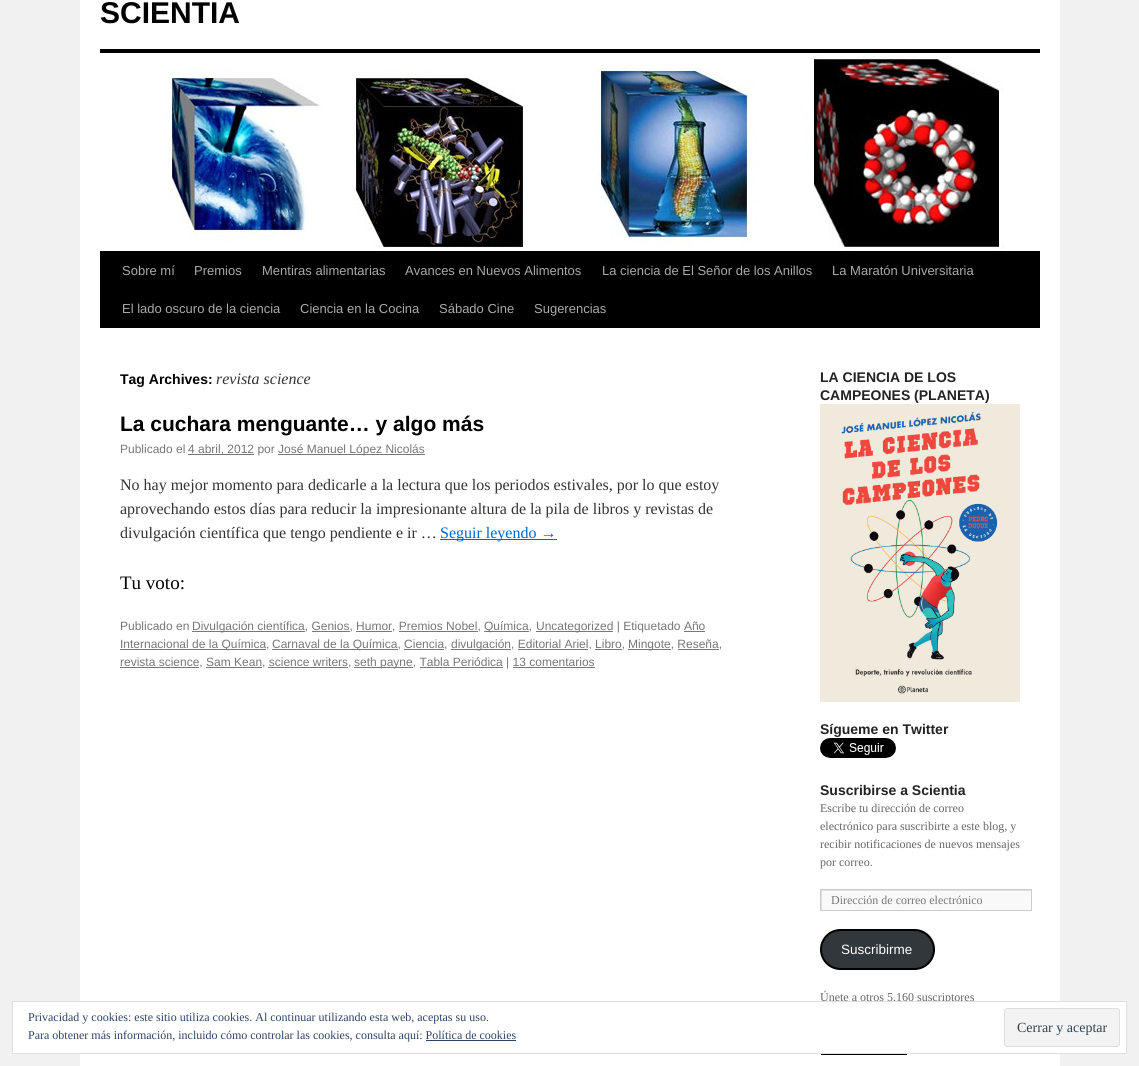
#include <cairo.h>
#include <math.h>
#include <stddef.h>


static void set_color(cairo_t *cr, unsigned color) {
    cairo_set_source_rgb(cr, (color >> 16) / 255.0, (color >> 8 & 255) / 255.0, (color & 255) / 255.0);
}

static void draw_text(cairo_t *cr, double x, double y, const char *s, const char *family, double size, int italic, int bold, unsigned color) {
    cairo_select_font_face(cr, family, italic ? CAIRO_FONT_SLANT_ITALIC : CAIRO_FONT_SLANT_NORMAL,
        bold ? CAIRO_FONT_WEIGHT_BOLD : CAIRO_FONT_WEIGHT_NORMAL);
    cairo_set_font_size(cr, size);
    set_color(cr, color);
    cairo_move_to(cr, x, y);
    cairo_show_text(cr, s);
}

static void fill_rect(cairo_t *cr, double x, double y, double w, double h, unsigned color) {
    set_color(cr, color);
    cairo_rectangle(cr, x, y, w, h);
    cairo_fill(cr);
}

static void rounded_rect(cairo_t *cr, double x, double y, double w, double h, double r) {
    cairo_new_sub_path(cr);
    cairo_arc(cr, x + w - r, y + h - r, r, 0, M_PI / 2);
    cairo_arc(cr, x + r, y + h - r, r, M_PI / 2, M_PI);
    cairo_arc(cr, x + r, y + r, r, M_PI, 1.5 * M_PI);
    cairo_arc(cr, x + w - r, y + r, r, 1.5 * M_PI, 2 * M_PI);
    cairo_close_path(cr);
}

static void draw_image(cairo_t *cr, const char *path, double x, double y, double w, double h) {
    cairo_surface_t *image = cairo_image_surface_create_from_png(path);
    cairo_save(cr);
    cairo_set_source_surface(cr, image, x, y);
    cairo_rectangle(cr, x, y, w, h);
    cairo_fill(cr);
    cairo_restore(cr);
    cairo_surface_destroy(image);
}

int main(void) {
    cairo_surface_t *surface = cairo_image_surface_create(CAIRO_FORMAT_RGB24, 1139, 1066);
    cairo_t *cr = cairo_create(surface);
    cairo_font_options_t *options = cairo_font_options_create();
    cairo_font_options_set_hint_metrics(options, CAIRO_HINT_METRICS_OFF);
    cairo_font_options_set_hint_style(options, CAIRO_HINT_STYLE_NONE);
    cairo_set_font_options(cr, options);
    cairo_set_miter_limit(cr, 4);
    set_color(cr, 0xF1F1F1);
    cairo_paint(cr);
    fill_rect(cr, 80, 0, 980, 1066, 0xFFFFFF);
    draw_text(cr, 100, 23, "SCIENTIA", "Liberation Sans", 30, 0, 1, 0x000000);
    fill_rect(cr, 100, 49, 940, 4, 0x000000);
    fill_rect(cr, 100, 251, 940, 77, 0x000000);
    draw_image(cr, "assets/img1.png", 164, 53, 840, 198);
    draw_text(cr, 122, 275, "Sobre mí", "Liberation Sans", 13, 0, 0, 0xAAAAAA);
    draw_text(cr, 194, 275, "Premios", "Liberation Sans", 13, 0, 0, 0xAAAAAA);
    draw_text(cr, 262, 275, "Mentiras alimentarias", "Liberation Sans", 13, 0, 0, 0xAAAAAA);
    draw_text(cr, 405, 275, "Avances en Nuevos Alimentos", "Liberation Sans", 13, 0, 0, 0xAAAAAA);
    draw_text(cr, 602, 275, "La ciencia de El Señor de los Anillos", "Liberation Sans", 13, 0, 0, 0xAAAAAA);
    draw_text(cr, 832, 275, "La Maratón Universitaria", "Liberation Sans", 13, 0, 0, 0xAAAAAA);
    draw_text(cr, 122, 313, "El lado oscuro de la ciencia", "Liberation Sans", 13, 0, 0, 0xAAAAAA);
    draw_text(cr, 300, 313, "Ciencia en la Cocina", "Liberation Sans", 13, 0, 0, 0xAAAAAA);
    draw_text(cr, 439, 313, "Sábado Cine", "Liberation Sans", 13, 0, 0, 0xAAAAAA);
    draw_text(cr, 534, 313, "Sugerencias", "Liberation Sans", 13, 0, 0, 0xAAAAAA);
    draw_text(cr, 120, 384, "Tag Archives:", "Liberation Sans", 14, 0, 1, 0x000000);
    draw_text(cr, 216, 384, "revista science", "Liberation Serif", 16, 1, 0, 0x333333);
    draw_text(cr, 120, 431, "La cuchara menguante… y algo más", "Liberation Sans", 21, 0, 1, 0x000000);
    draw_text(cr, 120, 453, "Publicado el", "Liberation Sans", 12, 0, 0, 0x777777);
    fill_rect(cr, 188, 454, 66, 1, 0x777777);
    draw_text(cr, 188, 453, "4 abril, 2012 por", "Liberation Sans", 12, 0, 0, 0x777777);
    fill_rect(cr, 278, 454, 147, 1, 0x777777);
    draw_text(cr, 278, 453, "José Manuel López Nicolás", "Liberation Sans", 12, 0, 0, 0x777777);
    draw_text(cr, 120, 490, "No hay mejor momento para dedicarle a la lectura que los periodos estivales, por lo que estoy", "Liberation Serif", 16, 0, 0, 0x333333);
    draw_text(cr, 120, 514, "aprovechando estos días para reducir la impresionante altura de la pila de libros y revistas de", "Liberation Serif", 16, 0, 0, 0x333333);
    draw_text(cr, 120, 538, "divulgación científica que tengo pendiente e ir …", "Liberation Serif", 16, 0, 0, 0x333333);
    fill_rect(cr, 440, 539, 117, 1, 0x0066CC);
    draw_text(cr, 440, 538, "Seguir leyendo →", "Liberation Serif", 16, 0, 0, 0x0066CC);
    draw_text(cr, 120, 589, "Tu voto:", "Liberation Serif", 19, 0, 0, 0x000000);
    draw_text(cr, 120, 630, "Publicado en", "Liberation Sans", 12, 0, 0, 0x777777);
    fill_rect(cr, 192, 631, 113, 1, 0x777777);
    draw_text(cr, 192, 630, "Divulgación científica, Genios, Humor, Premios Nobel,", "Liberation Sans", 12, 0, 0, 0x777777);
    fill_rect(cr, 312, 631, 38, 1, 0x777777);
    fill_rect(cr, 356, 631, 36, 1, 0x777777);
    fill_rect(cr, 399, 631, 79, 1, 0x777777);
    fill_rect(cr, 484, 631, 45, 1, 0x777777);
    draw_text(cr, 484, 630, "Química,", "Liberation Sans", 12, 0, 0, 0x777777);
    fill_rect(cr, 536, 631, 77, 1, 0x777777);
    draw_text(cr, 536, 630, "Uncategorized | Etiquetado Año", "Liberation Sans", 12, 0, 0, 0x777777);
    fill_rect(cr, 120, 649, 146, 1, 0x777777);
    draw_text(cr, 120, 648, "Internacional de la Química,", "Liberation Sans", 12, 0, 0, 0x777777);
    fill_rect(cr, 272, 649, 126, 1, 0x777777);
    draw_text(cr, 272, 648, "Carnaval de la Química, Ciencia,", "Liberation Sans", 12, 0, 0, 0x777777);
    fill_rect(cr, 404, 649, 40, 1, 0x777777);
    fill_rect(cr, 451, 649, 60, 1, 0x777777);
    draw_text(cr, 451, 648, "divulgación, Editorial Ariel, Libro,", "Liberation Sans", 12, 0, 0, 0x777777);
    fill_rect(cr, 518, 649, 70, 1, 0x777777);
    fill_rect(cr, 595, 649, 27, 1, 0x777777);
    fill_rect(cr, 628, 649, 43, 1, 0x777777);
    draw_text(cr, 628, 648, "Mingote, Reseña,", "Liberation Sans", 12, 0, 0, 0x777777);
    fill_rect(cr, 684, 631, 21, 1, 0x777777);
    fill_rect(cr, 678, 649, 41, 1, 0x777777);
    fill_rect(cr, 120, 667, 79, 1, 0x777777);
    draw_text(cr, 120, 666, "revista science, Sam Kean, science writers,", "Liberation Sans", 12, 0, 0, 0x777777);
    fill_rect(cr, 206, 667, 56, 1, 0x777777);
    fill_rect(cr, 268, 667, 80, 1, 0x777777);
    fill_rect(cr, 354, 667, 59, 1, 0x777777);
    draw_text(cr, 354, 666, "seth payne, Tabla Periódica | 13 comentarios", "Liberation Sans", 12, 0, 0, 0x777777);
    fill_rect(cr, 420, 667, 83, 1, 0x777777);
    fill_rect(cr, 513, 667, 82, 1, 0x777777);
    draw_text(cr, 820, 382, "LA CIENCIA DE LOS", "Liberation Sans", 14, 0, 1, 0x222222);
    draw_text(cr, 820, 400, "CAMPEONES (PLANETA)", "Liberation Sans", 14, 0, 1, 0x222222);
    draw_image(cr, "assets/img2.png", 820, 404, 200, 298);
    draw_text(cr, 820, 734, "Sígueme en Twitter", "Liberation Sans", 14, 0, 1, 0x222222);
    draw_image(cr, "assets/img3.png", 820, 738, 76, 20);
    draw_text(cr, 820, 795, "Suscribirse a Scientia", "Liberation Sans", 14, 0, 1, 0x222222);
    draw_text(cr, 820, 812, "Escribe tu dirección de correo", "Liberation Serif", 12, 0, 0, 0x666666);
    draw_text(cr, 820, 830, "electrónico para suscribirte a este blog, y", "Liberation Serif", 12, 0, 0, 0x666666);
    draw_text(cr, 820, 848, "recibir notificaciones de nuevos mensajes", "Liberation Serif", 12, 0, 0, 0x666666);
    draw_text(cr, 820, 866, "por correo.", "Liberation Serif", 12, 0, 0, 0x666666);
    fill_rect(cr, 822, 891, 209, 19, 0xF9F9F9);
    cairo_save(cr);
    cairo_rectangle(cr, 821, 890, 210, 20);
    cairo_clip(cr);
    set_color(cr, 0xE0E0E0);
    cairo_set_fill_rule(cr, CAIRO_FILL_RULE_EVEN_ODD);
    cairo_new_path(cr);
    cairo_move_to(cr, 722, 791);
    cairo_line_to(cr, 1130, 791);
    cairo_line_to(cr, 1130, 1009);
    cairo_line_to(cr, 722, 1009);
    cairo_close_path(cr);
    cairo_move_to(cr, 822, 891);
    cairo_line_to(cr, 1032, 891);
    cairo_line_to(cr, 1032, 911);
    cairo_line_to(cr, 822, 911);
    cairo_close_path(cr);
    cairo_fill(cr);
    cairo_restore(cr);
    cairo_rectangle(cr, 820.5, 889.5, 211, 21);
    set_color(cr, 0xCCCCCC);
    cairo_set_line_width(cr, 1);
    cairo_stroke(cr);
    draw_text(cr, 831, 904, "Dirección de correo electrónico", "Liberation Serif", 12, 0, 0, 0x777777);
    set_color(cr, 0x32373C);
    rounded_rect(cr, 821, 930, 113, 39, 19.5);
    cairo_fill_preserve(cr);
    set_color(cr, 0x000000);
    cairo_set_line_width(cr, 2);
    cairo_stroke(cr);
    draw_text(cr, 841, 954, "Suscribirme", "Liberation Sans", 13.5, 0, 0, 0xFFFFFF);
    draw_text(cr, 820, 1001, "Únete a otros 5.160 suscriptores", "Liberation Serif", 12, 0, 0, 0x666666);
    draw_image(cr, "assets/img4.png", 820, 1054, 87, 1);
    set_color(cr, 0xFFFFFF);
    cairo_rectangle(cr, 12.5, 1001.5, 1114, 52);
    cairo_fill_preserve(cr);
    set_color(cr, 0xDEDEDE);
    cairo_set_line_width(cr, 1);
    cairo_stroke(cr);
    draw_text(cr, 28, 1021, "Privacidad y cookies: este sitio utiliza cookies. Al continuar utilizando esta web, aceptas su uso.", "Liberation Serif", 12, 0, 0, 0x2E4467);
    draw_text(cr, 28, 1039, "Para obtener más información, incluido cómo controlar las cookies, consulta aquí: Política de cookies", "Liberation Serif", 12, 0, 0, 0x2E4467);
    set_color(cr, 0xF3F3F3);
    rounded_rect(cr, 1004.5, 1008.5, 115, 38, 2.5);
    cairo_fill_preserve(cr);
    set_color(cr, 0xDEDEDE);
    cairo_stroke(cr);
    draw_text(cr, 1017, 1032, "Cerrar y aceptar", "Liberation Serif", 14, 0, 0, 0x2E4453);
    fill_rect(cr, 426, 1040, 90, 1, 0x2E4467);
    cairo_surface_write_to_png(surface, "output.png");
    cairo_font_options_destroy(options);
    cairo_destroy(cr);
    cairo_surface_destroy(surface);
    return 0;
}
